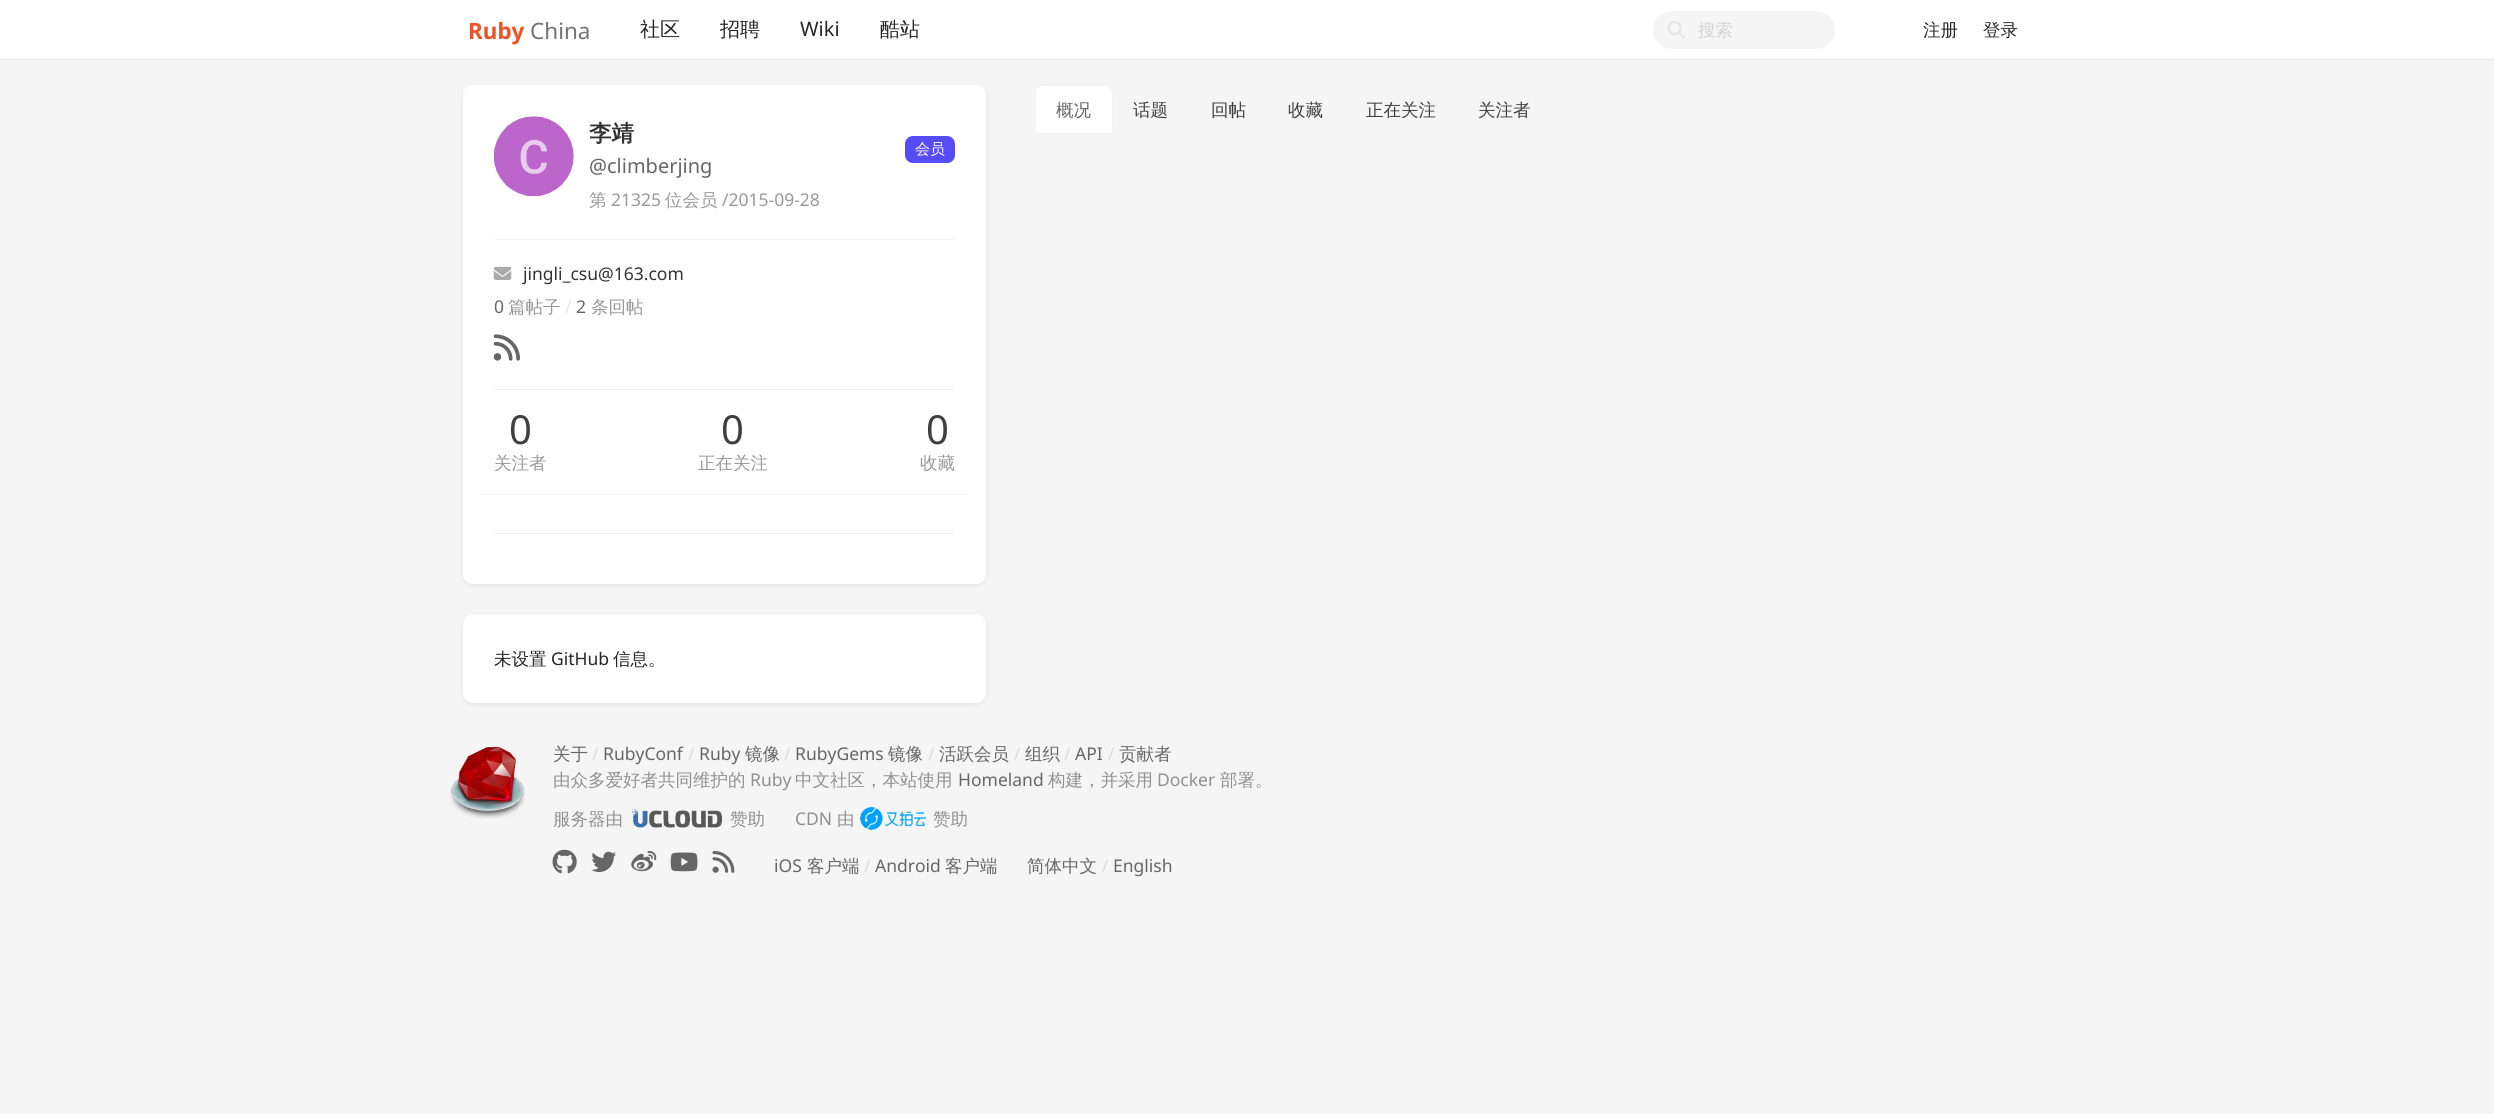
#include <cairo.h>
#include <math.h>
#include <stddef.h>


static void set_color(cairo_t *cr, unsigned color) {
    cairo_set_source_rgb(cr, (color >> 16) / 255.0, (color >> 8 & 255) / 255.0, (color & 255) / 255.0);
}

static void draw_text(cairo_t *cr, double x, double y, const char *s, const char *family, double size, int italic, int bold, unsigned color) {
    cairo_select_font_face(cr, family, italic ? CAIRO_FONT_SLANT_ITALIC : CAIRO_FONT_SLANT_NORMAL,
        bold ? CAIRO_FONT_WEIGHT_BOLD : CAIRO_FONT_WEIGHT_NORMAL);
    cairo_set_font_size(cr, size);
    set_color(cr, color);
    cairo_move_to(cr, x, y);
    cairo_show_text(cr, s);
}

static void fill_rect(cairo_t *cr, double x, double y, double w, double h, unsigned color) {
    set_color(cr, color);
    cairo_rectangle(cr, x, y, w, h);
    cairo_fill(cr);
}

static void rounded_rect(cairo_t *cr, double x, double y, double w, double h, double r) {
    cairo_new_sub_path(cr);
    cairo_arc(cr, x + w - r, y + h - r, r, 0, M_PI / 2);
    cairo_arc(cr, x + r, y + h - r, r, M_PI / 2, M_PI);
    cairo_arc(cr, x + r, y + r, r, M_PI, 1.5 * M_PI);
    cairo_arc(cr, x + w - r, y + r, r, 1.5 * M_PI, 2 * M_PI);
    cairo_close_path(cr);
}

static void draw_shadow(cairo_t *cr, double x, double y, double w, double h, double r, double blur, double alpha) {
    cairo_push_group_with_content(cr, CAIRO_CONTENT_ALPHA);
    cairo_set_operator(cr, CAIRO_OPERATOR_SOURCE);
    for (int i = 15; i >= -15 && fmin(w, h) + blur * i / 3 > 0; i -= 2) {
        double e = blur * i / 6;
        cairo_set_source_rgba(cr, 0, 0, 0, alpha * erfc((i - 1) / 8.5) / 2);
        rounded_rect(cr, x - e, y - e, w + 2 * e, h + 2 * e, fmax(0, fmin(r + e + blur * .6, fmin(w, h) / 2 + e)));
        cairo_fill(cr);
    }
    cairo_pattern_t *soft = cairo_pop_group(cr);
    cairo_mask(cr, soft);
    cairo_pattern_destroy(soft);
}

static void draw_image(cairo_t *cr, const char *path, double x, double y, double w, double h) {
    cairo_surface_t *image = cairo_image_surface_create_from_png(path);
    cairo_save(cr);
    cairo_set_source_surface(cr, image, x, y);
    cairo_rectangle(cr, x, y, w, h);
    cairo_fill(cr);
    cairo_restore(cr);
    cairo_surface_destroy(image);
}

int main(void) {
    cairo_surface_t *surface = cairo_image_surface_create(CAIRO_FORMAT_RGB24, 2494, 1114);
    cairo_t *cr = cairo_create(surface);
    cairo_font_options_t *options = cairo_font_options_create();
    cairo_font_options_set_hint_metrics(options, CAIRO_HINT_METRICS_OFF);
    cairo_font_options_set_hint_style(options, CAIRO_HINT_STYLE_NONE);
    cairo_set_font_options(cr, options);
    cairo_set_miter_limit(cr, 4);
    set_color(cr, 0xF5F5F5);
    cairo_paint(cr);
    fill_rect(cr, 0, 0, 2494, 59, 0xFFFFFF);
    fill_rect(cr, 0, 59, 2494, 1, 0xE5E5E5);
    draw_text(cr, 468, 39, "Ruby", "Noto Sans", 22.5, 0, 1, 0xEB5424);
    draw_text(cr, 530, 39, "China", "Noto Sans", 22.5, 0, 0, 0x737373);
    draw_text(cr, 640, 36, "社区", "WenQuanYi Zen Hei Medium", 20, 0, 0, 0x262626);
    draw_text(cr, 720, 36, "招聘", "WenQuanYi Zen Hei Medium", 20, 0, 0, 0x262626);
    draw_text(cr, 800, 36, "Wiki", "Noto Sans", 20, 0, 0, 0x262626);
    draw_text(cr, 880, 36, "酷站", "WenQuanYi Zen Hei Medium", 20, 0, 0, 0x262626);
    set_color(cr, 0xF5F5F5);
    rounded_rect(cr, 1653, 11, 182, 38, 19);
    cairo_fill(cr);
    draw_image(cr, "assets/img1.png", 1667, 21, 18, 18);
    draw_text(cr, 1698, 36, "搜索", "WenQuanYi Zen Hei Medium", 17.5, 0, 0, 0xD4D4D4);
    draw_text(cr, 1923, 36, "注册", "WenQuanYi Zen Hei Medium", 17.5, 0, 0, 0x262626);
    draw_text(cr, 1983, 36, "登录", "WenQuanYi Zen Hei Medium", 17.5, 0, 0, 0x262626);
    set_color(cr, 0xFFFFFF);
    cairo_new_path(cr);
    cairo_move_to(cr, 1043, 85);
    cairo_line_to(cr, 1105, 85);
    cairo_curve_to(cr, 1109.5, 85, 1113, 88.5, 1113, 93);
    cairo_line_to(cr, 1113, 134);
    cairo_line_to(cr, 1035, 134);
    cairo_line_to(cr, 1035, 93);
    cairo_curve_to(cr, 1035, 88.5, 1038.5, 85, 1043, 85);
    cairo_close_path(cr);
    cairo_fill(cr);
    cairo_new_path(cr);
    cairo_move_to(cr, 1043, 85.5);
    cairo_line_to(cr, 1105, 85.5);
    cairo_curve_to(cr, 1109, 85.5, 1112.5, 89, 1112.5, 93);
    cairo_line_to(cr, 1112.5, 133.5);
    cairo_line_to(cr, 1035.5, 133.5);
    cairo_line_to(cr, 1035.5, 93);
    cairo_curve_to(cr, 1035.5, 89, 1039, 85.5, 1043, 85.5);
    cairo_close_path(cr);
    cairo_set_source_rgba(cr, 0.471, 0.51, 0.549, 0.09);
    cairo_set_line_width(cr, 1);
    cairo_stroke(cr);
    draw_text(cr, 1056, 116, "概况", "WenQuanYi Zen Hei Medium", 17.5, 0, 0, 0x666666);
    draw_text(cr, 1133, 116, "话题", "WenQuanYi Zen Hei Medium", 17.5, 0, 0, 0x404040);
    draw_text(cr, 1211, 116, "回帖", "WenQuanYi Zen Hei Medium", 17.5, 0, 0, 0x404040);
    draw_text(cr, 1288, 116, "收藏", "WenQuanYi Zen Hei Medium", 17.5, 0, 0, 0x404040);
    draw_text(cr, 1366, 116, "正在关注", "WenQuanYi Zen Hei Medium", 17.5, 0, 0, 0x404040);
    draw_text(cr, 1478, 116, "关注者", "WenQuanYi Zen Hei Medium", 17.5, 0, 0, 0x404040);
    set_color(cr, 0x000000);
    draw_shadow(cr, 463, 88, 523, 498, 10, 2.5, 0.07);
    set_color(cr, 0xFFFFFF);
    rounded_rect(cr, 463, 85, 523, 499, 10);
    cairo_fill(cr);
    draw_image(cr, "assets/img2.png", 493, 116, 81, 81);
    draw_text(cr, 589, 141, "李靖", "WenQuanYi Zen Hei", 22.5, 0, 1, 0x333333);
    draw_text(cr, 589, 173, "@climberjing", "Noto Sans", 20, 0, 0, 0x666666);
    set_color(cr, 0x564CF5);
    rounded_rect(cr, 905, 136, 50, 27, 8);
    cairo_fill(cr);
    draw_text(cr, 915, 154, "会员", "WenQuanYi Zen Hei Medium", 15, 0, 0, 0xFFFFFF);
    draw_text(cr, 589, 206, "第", "WenQuanYi Zen Hei Medium", 17.5, 0, 0, 0x999999);
    draw_text(cr, 611, 206, "21325", "Noto Sans", 17.5, 0, 0, 0x999999);
    draw_text(cr, 665, 206, "位会员", "WenQuanYi Zen Hei Medium", 17.5, 0, 0, 0x999999);
    draw_text(cr, 722, 206, "/2015-09-28", "Noto Sans", 17.5, 0, 0, 0x999999);
    fill_rect(cr, 494, 239, 461, 1, 0xF3F3F3);
    draw_image(cr, "assets/img3.png", 493, 266, 19, 14);
    draw_text(cr, 523, 280, "jingli_csu@163.com", "Noto Sans", 17.5, 0, 0, 0x333333);
    draw_text(cr, 494, 313, "0", "Noto Sans", 17.5, 0, 0, 0x666666);
    draw_text(cr, 508, 313, "篇帖子", "WenQuanYi Zen Hei Medium", 17.5, 0, 0, 0x999999);
    draw_text(cr, 565, 313, "/", "Noto Sans", 17.5, 0, 0, 0xE6E6E6);
    draw_text(cr, 576, 313, "2", "Noto Sans", 17.5, 0, 0, 0x666666);
    draw_text(cr, 591, 313, "条回帖", "WenQuanYi Zen Hei Medium", 17.5, 0, 0, 0x999999);
    draw_image(cr, "assets/img4.png", 493, 334, 27, 27);
    fill_rect(cr, 494, 389, 461, 1, 0xF2F2F2);
    draw_text(cr, 509, 444, "0", "Noto Sans", 40, 0, 0, 0x404040);
    draw_text(cr, 494, 469, "关注者", "WenQuanYi Zen Hei Medium", 17.5, 0, 0, 0x999999);
    draw_text(cr, 721, 444, "0", "Noto Sans", 40, 0, 0, 0x404040);
    draw_text(cr, 698, 469, "正在关注", "WenQuanYi Zen Hei Medium", 17.5, 0, 0, 0x999999);
    draw_text(cr, 926, 444, "0", "Noto Sans", 40, 0, 0, 0x404040);
    draw_text(cr, 920, 469, "收藏", "WenQuanYi Zen Hei Medium", 17.5, 0, 0, 0x999999);
    fill_rect(cr, 479, 494, 491, 1, 0xF2F2F2);
    fill_rect(cr, 494, 533, 461, 1, 0xF2F2F2);
    set_color(cr, 0x000000);
    draw_shadow(cr, 463, 616, 523, 89, 10, 2.5, 0.07);
    set_color(cr, 0xFFFFFF);
    rounded_rect(cr, 463, 614, 523, 89, 10);
    cairo_fill(cr);
    draw_text(cr, 494, 665, "未设置", "WenQuanYi Zen Hei Medium", 17.5, 0, 0, 0x262626);
    draw_text(cr, 551, 665, "GitHub", "Noto Sans", 17.5, 0, 0, 0x262626);
    draw_text(cr, 613, 665, "信息。", "WenQuanYi Zen Hei Medium", 17.5, 0, 0, 0x262626);
    draw_image(cr, "assets/img5.png", 450, 746, 75, 73);
    draw_text(cr, 553, 760, "关于", "WenQuanYi Zen Hei Medium", 17.5, 0, 0, 0x666666);
    draw_text(cr, 592, 760, "/", "Noto Sans", 17.5, 0, 0, 0xDDDDDD);
    draw_text(cr, 603, 760, "RubyConf", "Noto Sans", 17.5, 0, 0, 0x666666);
    draw_text(cr, 688, 760, "/", "Noto Sans", 17.5, 0, 0, 0xDDDDDD);
    draw_text(cr, 699, 760, "Ruby", "Noto Sans", 17.5, 0, 0, 0x666666);
    draw_text(cr, 745, 760, "镜像", "WenQuanYi Zen Hei Medium", 17.5, 0, 0, 0x666666);
    draw_text(cr, 784, 760, "/", "Noto Sans", 17.5, 0, 0, 0xDDDDDD);
    draw_text(cr, 795, 760, "RubyGems", "Noto Sans", 17.5, 0, 0, 0x666666);
    draw_text(cr, 888, 760, "镜像", "WenQuanYi Zen Hei Medium", 17.5, 0, 0, 0x666666);
    draw_text(cr, 928, 760, "/", "Noto Sans", 17.5, 0, 0, 0xDDDDDD);
    draw_text(cr, 939, 760, "活跃会员", "WenQuanYi Zen Hei Medium", 17.5, 0, 0, 0x666666);
    draw_text(cr, 1014, 760, "/", "Noto Sans", 17.5, 0, 0, 0xDDDDDD);
    draw_text(cr, 1025, 760, "组织", "WenQuanYi Zen Hei Medium", 17.5, 0, 0, 0x666666);
    draw_text(cr, 1064, 760, "/", "Noto Sans", 17.5, 0, 0, 0xDDDDDD);
    draw_text(cr, 1075, 760, "API", "Noto Sans", 17.5, 0, 0, 0x666666);
    draw_text(cr, 1108, 760, "/", "Noto Sans", 17.5, 0, 0, 0xDDDDDD);
    draw_text(cr, 1119, 760, "贡献者", "WenQuanYi Zen Hei Medium", 17.5, 0, 0, 0x666666);
    draw_text(cr, 553, 786, "由众多爱好者共同维护的", "WenQuanYi Zen Hei Medium", 17.5, 0, 0, 0x909090);
    draw_text(cr, 750, 786, "Ruby", "Noto Sans", 17.5, 0, 0, 0x909090);
    draw_text(cr, 795, 786, "中文社区，本站使用", "WenQuanYi Zen Hei Medium", 17.5, 0, 0, 0x909090);
    draw_text(cr, 958, 786, "Homeland", "Noto Sans", 17.5, 0, 0, 0x666666);
    draw_text(cr, 1048, 786, "构建，并采用", "WenQuanYi Zen Hei Medium", 17.5, 0, 0, 0x909090);
    draw_text(cr, 1157, 786, "Docker", "Noto Sans", 17.5, 0, 0, 0x909090);
    draw_text(cr, 1220, 786, "部署。", "WenQuanYi Zen Hei Medium", 17.5, 0, 0, 0x909090);
    draw_text(cr, 553, 825, "服务器由", "WenQuanYi Zen Hei Medium", 17.5, 0, 0, 0x909090);
    draw_image(cr, "assets/img6.png", 632, 809, 90, 19);
    draw_text(cr, 730, 825, "赞助", "WenQuanYi Zen Hei Medium", 17.5, 0, 0, 0x909090);
    draw_text(cr, 795, 825, "CDN", "Noto Sans", 17.5, 0, 0, 0x909090);
    draw_text(cr, 837, 825, "由", "WenQuanYi Zen Hei Medium", 17.5, 0, 0, 0x909090);
    draw_image(cr, "assets/img7.png", 860, 807, 67, 23);
    draw_text(cr, 933, 825, "赞助", "WenQuanYi Zen Hei Medium", 17.5, 0, 0, 0x909090);
    draw_image(cr, "assets/img8.png", 552, 849, 25, 25);
    draw_image(cr, "assets/img9.png", 591, 851, 25, 21);
    draw_image(cr, "assets/img10.png", 631, 850, 26, 22);
    draw_image(cr, "assets/img11.png", 670, 852, 28, 20);
    draw_image(cr, "assets/img12.png", 712, 850, 23, 23);
    draw_text(cr, 774, 872, "iOS", "Noto Sans", 17.5, 0, 0, 0x666666);
    draw_text(cr, 807, 872, "客户端", "WenQuanYi Zen Hei Medium", 17.5, 0, 0, 0x666666);
    draw_text(cr, 864, 872, "/", "Noto Sans", 17.5, 0, 0, 0xDDDDDD);
    draw_text(cr, 875, 872, "Android", "Noto Sans", 17.5, 0, 0, 0x666666);
    draw_text(cr, 945, 872, "客户端", "WenQuanYi Zen Hei Medium", 17.5, 0, 0, 0x666666);
    draw_text(cr, 1027, 872, "简体中文", "WenQuanYi Zen Hei Medium", 17.5, 0, 0, 0x666666);
    draw_text(cr, 1102, 872, "/", "Noto Sans", 17.5, 0, 0, 0xDDDDDD);
    draw_text(cr, 1113, 872, "English", "Noto Sans", 17.5, 0, 0, 0x666666);
    cairo_surface_write_to_png(surface, "output.png");
    cairo_font_options_destroy(options);
    cairo_destroy(cr);
    cairo_surface_destroy(surface);
    return 0;
}
